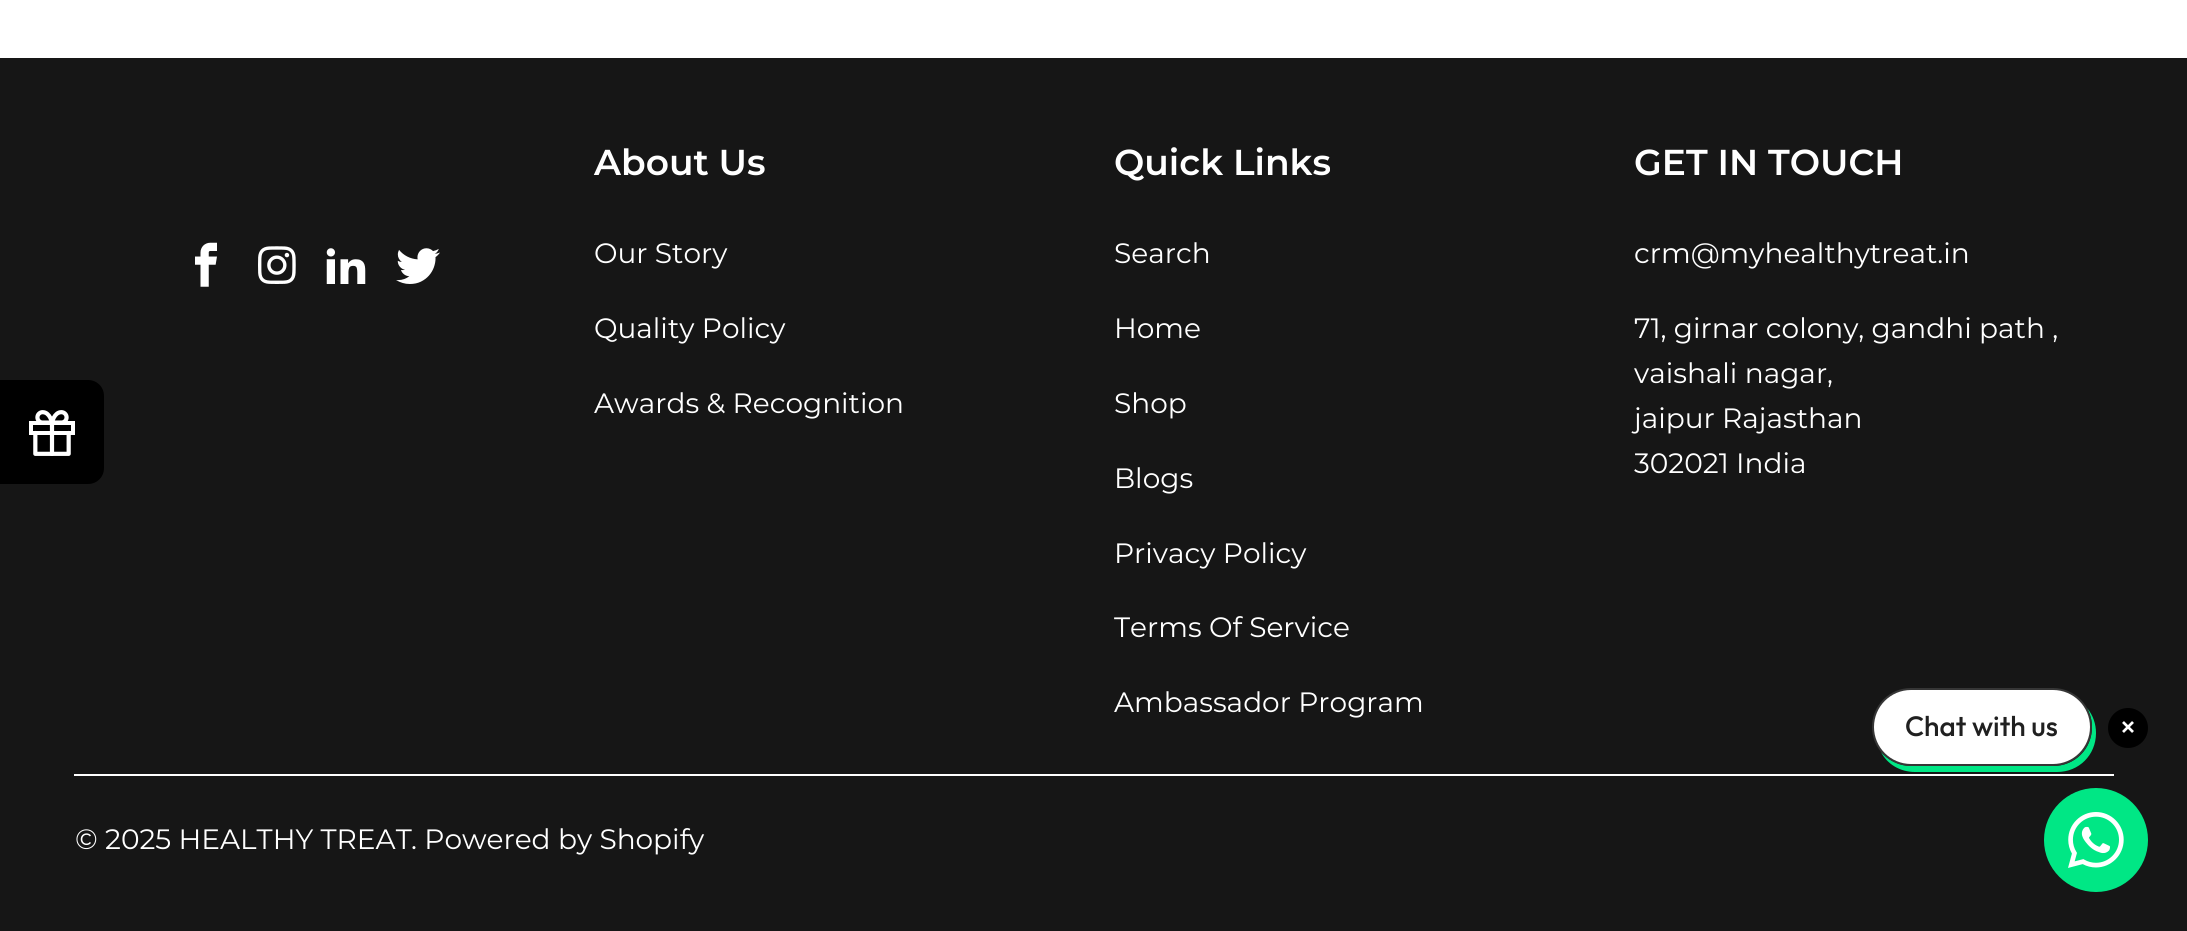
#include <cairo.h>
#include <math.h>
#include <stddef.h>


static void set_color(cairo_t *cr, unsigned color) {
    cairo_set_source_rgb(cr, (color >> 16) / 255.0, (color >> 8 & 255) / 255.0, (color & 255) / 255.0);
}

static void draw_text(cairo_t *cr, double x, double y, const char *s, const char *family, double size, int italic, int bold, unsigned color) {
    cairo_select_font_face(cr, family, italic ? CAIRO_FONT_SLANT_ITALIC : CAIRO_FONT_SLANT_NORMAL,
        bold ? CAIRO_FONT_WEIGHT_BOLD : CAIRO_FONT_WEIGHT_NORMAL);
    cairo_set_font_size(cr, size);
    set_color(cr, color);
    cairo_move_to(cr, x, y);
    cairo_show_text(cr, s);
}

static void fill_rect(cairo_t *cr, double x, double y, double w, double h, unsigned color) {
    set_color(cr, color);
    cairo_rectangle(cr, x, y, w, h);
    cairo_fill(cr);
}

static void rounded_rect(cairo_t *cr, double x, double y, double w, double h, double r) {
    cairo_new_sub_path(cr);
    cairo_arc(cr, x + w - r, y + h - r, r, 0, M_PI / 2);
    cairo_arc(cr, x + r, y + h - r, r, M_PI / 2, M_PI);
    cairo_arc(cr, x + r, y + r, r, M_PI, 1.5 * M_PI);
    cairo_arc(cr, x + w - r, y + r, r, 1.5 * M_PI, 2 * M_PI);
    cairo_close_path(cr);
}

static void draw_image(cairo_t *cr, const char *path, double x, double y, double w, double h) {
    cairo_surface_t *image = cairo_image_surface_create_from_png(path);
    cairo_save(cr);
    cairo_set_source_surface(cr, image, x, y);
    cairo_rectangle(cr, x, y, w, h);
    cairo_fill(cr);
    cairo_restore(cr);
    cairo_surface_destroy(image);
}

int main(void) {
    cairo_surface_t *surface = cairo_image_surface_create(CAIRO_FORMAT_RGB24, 2187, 931);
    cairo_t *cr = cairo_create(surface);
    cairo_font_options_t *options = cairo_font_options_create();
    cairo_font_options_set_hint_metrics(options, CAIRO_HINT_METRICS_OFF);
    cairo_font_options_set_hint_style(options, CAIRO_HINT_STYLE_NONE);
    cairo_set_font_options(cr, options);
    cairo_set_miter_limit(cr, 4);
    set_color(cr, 0xFFFFFF);
    cairo_paint(cr);
    fill_rect(cr, 0, 58, 2187, 873, 0x161616);
    set_color(cr, 0x000000);
    cairo_new_path(cr);
    cairo_move_to(cr, 0, 380);
    cairo_line_to(cr, 88, 380);
    cairo_curve_to(cr, 97, 380, 104, 387, 104, 396);
    cairo_line_to(cr, 104, 468);
    cairo_curve_to(cr, 104, 477, 97, 484, 88, 484);
    cairo_line_to(cr, 0, 484);
    cairo_close_path(cr);
    cairo_fill(cr);
    draw_image(cr, "assets/img1.png", 29, 410, 46, 46);
    draw_image(cr, "assets/img2.png", 195, 242, 22, 45);
    draw_image(cr, "assets/img3.png", 258, 246, 38, 38);
    draw_image(cr, "assets/img4.png", 326, 248, 40, 36);
    draw_image(cr, "assets/img5.png", 396, 248, 44, 36);
    draw_text(cr, 594, 175, "About Us", "Montserrat SemiBold", 36, 0, 0, 0xFFFFFF);
    draw_text(cr, 594, 263, "Our Story", "Montserrat", 28, 0, 0, 0xFFFFFF);
    draw_text(cr, 594, 338, "Quality Policy", "Montserrat", 28, 0, 0, 0xFFFFFF);
    draw_text(cr, 594, 413, "Awards & Recognition", "Montserrat", 28, 0, 0, 0xFFFFFF);
    draw_text(cr, 1114, 175, "Quick Links", "Montserrat SemiBold", 36, 0, 0, 0xFFFFFF);
    draw_text(cr, 1114, 263, "Search", "Montserrat", 28, 0, 0, 0xFFFFFF);
    draw_text(cr, 1114, 338, "Home", "Montserrat", 28, 0, 0, 0xFFFFFF);
    draw_text(cr, 1114, 413, "Shop", "Montserrat", 28, 0, 0, 0xFFFFFF);
    draw_text(cr, 1114, 488, "Blogs", "Montserrat", 28, 0, 0, 0xFFFFFF);
    draw_text(cr, 1114, 563, "Privacy Policy", "Montserrat", 28, 0, 0, 0xFFFFFF);
    draw_text(cr, 1114, 637, "Terms Of Service", "Montserrat", 28, 0, 0, 0xFFFFFF);
    draw_text(cr, 1114, 712, "Ambassador Program", "Montserrat", 28, 0, 0, 0xFFFFFF);
    draw_text(cr, 1634, 175, "GET IN TOUCH", "Montserrat SemiBold", 36, 0, 0, 0xFFFFFF);
    draw_text(cr, 1634, 263, "crm@myhealthytreat.in", "Montserrat", 28, 0, 0, 0xFFFFFF);
    draw_text(cr, 1634, 338, "71, girnar colony, gandhi path ,", "Montserrat", 28, 0, 0, 0xFFFFFF);
    draw_text(cr, 1634, 383, "vaishali nagar,", "Montserrat", 28, 0, 0, 0xFFFFFF);
    draw_text(cr, 1634, 428, "jaipur Rajasthan", "Montserrat", 28, 0, 0, 0xFFFFFF);
    draw_text(cr, 1634, 473, "302021 India", "Montserrat", 28, 0, 0, 0xFFFFFF);
    fill_rect(cr, 74, 774, 2040, 2, 0xFFFFFF);
    draw_text(cr, 75, 849, "© 2025 HEALTHY TREAT", "Montserrat", 28, 0, 0, 0xFFFFFF);
    draw_text(cr, 411, 849, ". Powered by Shopify", "Montserrat", 28, 0, 0, 0xFFFFFF);
    set_color(cr, 0x00E785);
    cairo_new_path(cr);
    cairo_move_to(cr, 1881, 752);
    cairo_curve_to(cr, 1887, 764, 1900, 772, 1915, 772);
    cairo_line_to(cr, 2057, 772);
    cairo_curve_to(cr, 2079, 772, 2096, 755, 2096, 733);
    cairo_curve_to(cr, 2096, 724, 2093, 715, 2087, 708);
    cairo_curve_to(cr, 2090, 714, 2092, 720, 2092, 727);
    cairo_curve_to(cr, 2092, 749, 2075, 766, 2053, 766);
    cairo_line_to(cr, 1911, 766);
    cairo_curve_to(cr, 1899, 766, 1888, 760, 1881, 752);
    cairo_close_path(cr);
    cairo_fill(cr);
    set_color(cr, 0xFFFFFF);
    rounded_rect(cr, 1873, 689, 218, 76, 38);
    cairo_fill_preserve(cr);
    set_color(cr, 0x363636);
    cairo_stroke(cr);
    draw_text(cr, 1905, 736, "Chat with us", "Outfit Medium", 28, 0, 0, 0x202020);
    set_color(cr, 0x000000);
    cairo_new_path(cr);
    cairo_arc(cr, 2128, 728, 20, 0, 2 * M_PI);
    cairo_fill(cr);
    cairo_new_path(cr);
    cairo_move_to(cr, 2123, 722);
    cairo_line_to(cr, 2133, 732);
    cairo_move_to(cr, 2123, 732);
    cairo_line_to(cr, 2133, 722);
    set_color(cr, 0xFFFFFF);
    cairo_set_line_width(cr, 2.7);
    cairo_stroke(cr);
    set_color(cr, 0x00E785);
    cairo_arc(cr, 2096, 840, 52, 0, 2 * M_PI);
    cairo_fill(cr);
    draw_image(cr, "assets/img6.png", 2068, 812, 56, 56);
    cairo_surface_write_to_png(surface, "output.png");
    cairo_font_options_destroy(options);
    cairo_destroy(cr);
    cairo_surface_destroy(surface);
    return 0;
}
